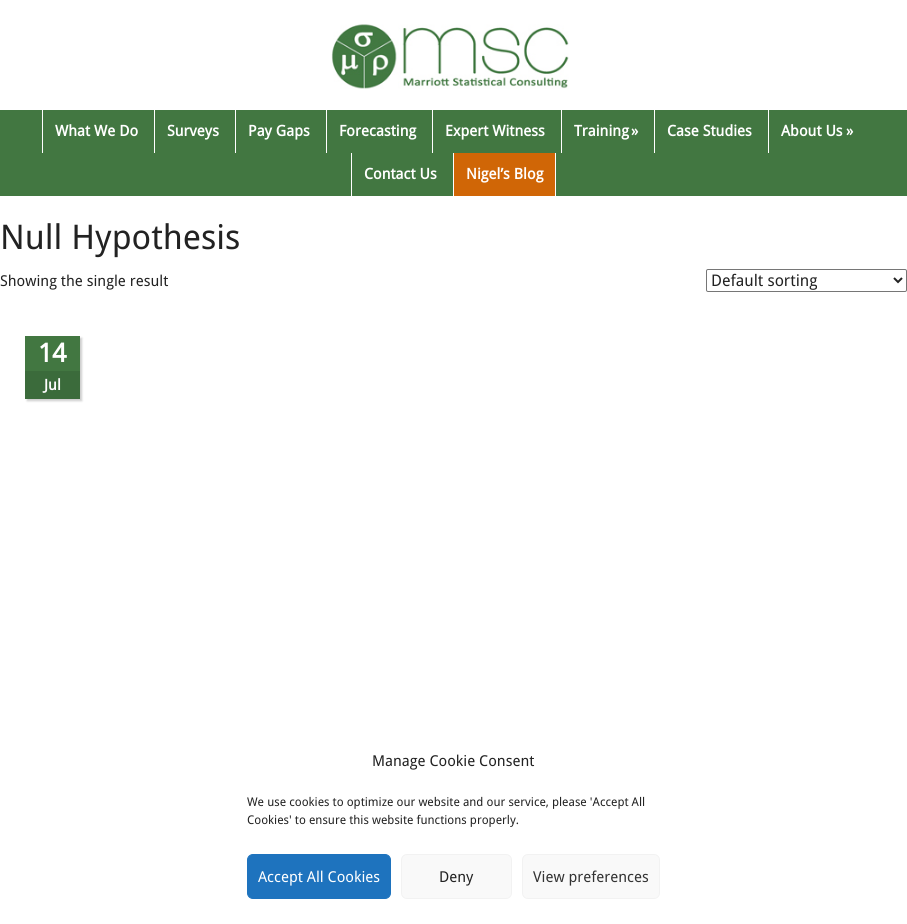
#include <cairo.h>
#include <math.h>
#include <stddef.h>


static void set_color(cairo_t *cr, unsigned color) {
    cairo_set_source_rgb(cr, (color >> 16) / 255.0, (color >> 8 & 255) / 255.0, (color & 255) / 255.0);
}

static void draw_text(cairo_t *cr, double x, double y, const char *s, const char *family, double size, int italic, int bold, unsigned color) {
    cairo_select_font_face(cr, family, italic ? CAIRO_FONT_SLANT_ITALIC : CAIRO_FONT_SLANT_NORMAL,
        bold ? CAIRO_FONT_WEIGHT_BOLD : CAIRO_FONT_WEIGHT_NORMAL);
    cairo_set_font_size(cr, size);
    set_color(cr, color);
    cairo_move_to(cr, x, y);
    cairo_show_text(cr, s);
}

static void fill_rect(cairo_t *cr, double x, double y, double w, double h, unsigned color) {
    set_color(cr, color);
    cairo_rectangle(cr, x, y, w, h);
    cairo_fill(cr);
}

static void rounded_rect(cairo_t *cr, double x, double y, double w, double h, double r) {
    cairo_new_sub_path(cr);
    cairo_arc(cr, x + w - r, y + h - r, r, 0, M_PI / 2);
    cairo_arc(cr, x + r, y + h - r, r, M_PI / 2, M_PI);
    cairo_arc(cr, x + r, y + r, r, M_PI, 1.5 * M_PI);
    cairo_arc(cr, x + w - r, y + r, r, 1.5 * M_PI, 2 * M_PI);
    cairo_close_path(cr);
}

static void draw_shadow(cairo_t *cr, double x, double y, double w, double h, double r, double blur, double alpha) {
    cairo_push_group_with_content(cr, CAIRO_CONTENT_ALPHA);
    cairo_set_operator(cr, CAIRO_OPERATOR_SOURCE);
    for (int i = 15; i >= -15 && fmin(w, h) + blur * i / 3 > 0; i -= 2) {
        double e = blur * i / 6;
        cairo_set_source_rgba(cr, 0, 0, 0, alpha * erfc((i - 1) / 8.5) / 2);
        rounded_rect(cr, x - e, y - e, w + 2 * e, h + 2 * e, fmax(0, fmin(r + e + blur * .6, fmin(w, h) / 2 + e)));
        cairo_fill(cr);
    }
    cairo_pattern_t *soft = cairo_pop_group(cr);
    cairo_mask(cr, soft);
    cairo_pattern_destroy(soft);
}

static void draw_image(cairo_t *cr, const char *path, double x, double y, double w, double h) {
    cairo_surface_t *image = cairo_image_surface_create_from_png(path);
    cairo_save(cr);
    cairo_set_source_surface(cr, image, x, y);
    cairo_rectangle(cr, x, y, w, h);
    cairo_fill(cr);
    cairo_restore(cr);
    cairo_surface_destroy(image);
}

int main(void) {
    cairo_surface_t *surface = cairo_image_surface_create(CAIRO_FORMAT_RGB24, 907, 924);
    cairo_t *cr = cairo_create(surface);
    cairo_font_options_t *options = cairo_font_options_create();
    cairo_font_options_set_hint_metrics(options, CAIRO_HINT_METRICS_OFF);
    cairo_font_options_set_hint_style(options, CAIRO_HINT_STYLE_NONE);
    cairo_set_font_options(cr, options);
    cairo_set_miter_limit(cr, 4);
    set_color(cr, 0xFFFFFF);
    cairo_paint(cr);
    draw_image(cr, "assets/img1.png", 331, 24, 238, 65);
    fill_rect(cr, 0, 110, 907, 86, 0x427741);
    fill_rect(cr, 42, 110, 1, 43, 0xFFFFFF);
    draw_text(cr, 55, 136, "What We Do", "Droid Sans", 15, 0, 1, 0xFFFFFF);
    fill_rect(cr, 154, 110, 1, 43, 0xFFFFFF);
    draw_text(cr, 167, 136, "Surveys", "Droid Sans", 15, 0, 1, 0xFFFFFF);
    fill_rect(cr, 235, 110, 1, 43, 0xFFFFFF);
    draw_text(cr, 248, 136, "Pay Gaps", "Droid Sans", 15, 0, 1, 0xFFFFFF);
    fill_rect(cr, 326, 110, 1, 43, 0xFFFFFF);
    draw_text(cr, 339, 136, "Forecasting", "Droid Sans", 15, 0, 1, 0xFFFFFF);
    fill_rect(cr, 432, 110, 1, 43, 0xFFFFFF);
    draw_text(cr, 445, 136, "Expert Witness", "Droid Sans", 15, 0, 1, 0xFFFFFF);
    fill_rect(cr, 561, 110, 1, 43, 0xFFFFFF);
    draw_text(cr, 574, 136, "Training", "Droid Sans", 15, 0, 1, 0xFFFFFF);
    draw_text(cr, 631, 136, "»", "Droid Sans", 15, 0, 1, 0xFFFFFF);
    fill_rect(cr, 654, 110, 1, 43, 0xFFFFFF);
    draw_text(cr, 667, 136, "Case Studies", "Droid Sans", 15, 0, 1, 0xFFFFFF);
    fill_rect(cr, 768, 110, 1, 43, 0xFFFFFF);
    draw_text(cr, 781, 136, "About Us", "Droid Sans", 15, 0, 1, 0xFFFFFF);
    draw_text(cr, 846, 136, "»", "Droid Sans", 15, 0, 1, 0xFFFFFF);
    fill_rect(cr, 351, 153, 1, 43, 0xFFFFFF);
    draw_text(cr, 364, 179, "Contact Us", "Droid Sans", 15, 0, 1, 0xFFFFFF);
    fill_rect(cr, 454, 153, 101, 43, 0xD06606);
    fill_rect(cr, 555, 153, 1, 43, 0xFFFFFF);
    fill_rect(cr, 453, 153, 1, 43, 0xFFFFFF);
    draw_text(cr, 466, 179, "Nigel’s Blog", "Droid Sans", 15, 0, 1, 0xFFFFFF);
    draw_text(cr, 0, 249, "Null Hypothesis", "Droid Sans", 34, 0, 0, 0x222222);
    draw_text(cr, 0, 286, "Showing the single result", "Droid Sans", 15, 0, 0, 0x222222);
    rounded_rect(cr, 706.5, 269.5, 200, 22, 1.5);
    set_color(cr, 0x767676);
    cairo_set_line_width(cr, 1);
    cairo_stroke(cr);
    cairo_new_path(cr);
    cairo_move_to(cr, 894, 278);
    cairo_line_to(cr, 898, 282);
    cairo_line_to(cr, 902, 278);
    set_color(cr, 0x222222);
    cairo_set_line_width(cr, 2);
    cairo_stroke(cr);
    draw_text(cr, 711, 286, "Default sorting", "Droid Sans", 16, 0, 0, 0x222222);
    set_color(cr, 0x000000);
    draw_shadow(cr, 27, 338, 55, 63, 0, 1, 0.2);
    fill_rect(cr, 25, 336, 55, 35, 0x427741);
    draw_text(cr, 38, 362, "14", "Droid Sans", 26, 0, 1, 0xFFFFFF);
    fill_rect(cr, 25, 371, 55, 28, 0x3B6B3B);
    draw_text(cr, 44, 390, "Jul", "Droid Sans", 15, 0, 1, 0xFFFFFF);
    draw_text(cr, 372, 766, "Manage Cookie Consent", "Droid Sans", 15, 0, 0, 0x222222);
    draw_text(cr, 247, 806, "We use cookies to optimize our website and our service, please 'Accept All", "Droid Sans", 12, 0, 0, 0x222222);
    draw_text(cr, 247, 824, "Cookies' to ensure this website functions properly.", "Droid Sans", 12, 0, 0, 0x222222);
    set_color(cr, 0x1E73BE);
    rounded_rect(cr, 247.5, 854.5, 143, 44, 5.5);
    cairo_fill_preserve(cr);
    cairo_set_line_width(cr, 1);
    cairo_stroke(cr);
    draw_text(cr, 258, 882, "Accept All Cookies", "Droid Sans", 15, 0, 0, 0xFFFFFF);
    set_color(cr, 0xF9F9F9);
    rounded_rect(cr, 401.5, 854.5, 110, 44, 5.5);
    cairo_fill_preserve(cr);
    set_color(cr, 0xF2F2F2);
    cairo_stroke(cr);
    draw_text(cr, 439, 882, "Deny", "Droid Sans", 15, 0, 0, 0x222222);
    set_color(cr, 0xF9F9F9);
    rounded_rect(cr, 522.5, 854.5, 137, 44, 5.5);
    cairo_fill_preserve(cr);
    set_color(cr, 0xF2F2F2);
    cairo_stroke(cr);
    draw_text(cr, 533, 882, "View preferences", "Droid Sans", 15, 0, 0, 0x333333);
    cairo_surface_write_to_png(surface, "output.png");
    cairo_font_options_destroy(options);
    cairo_destroy(cr);
    cairo_surface_destroy(surface);
    return 0;
}
